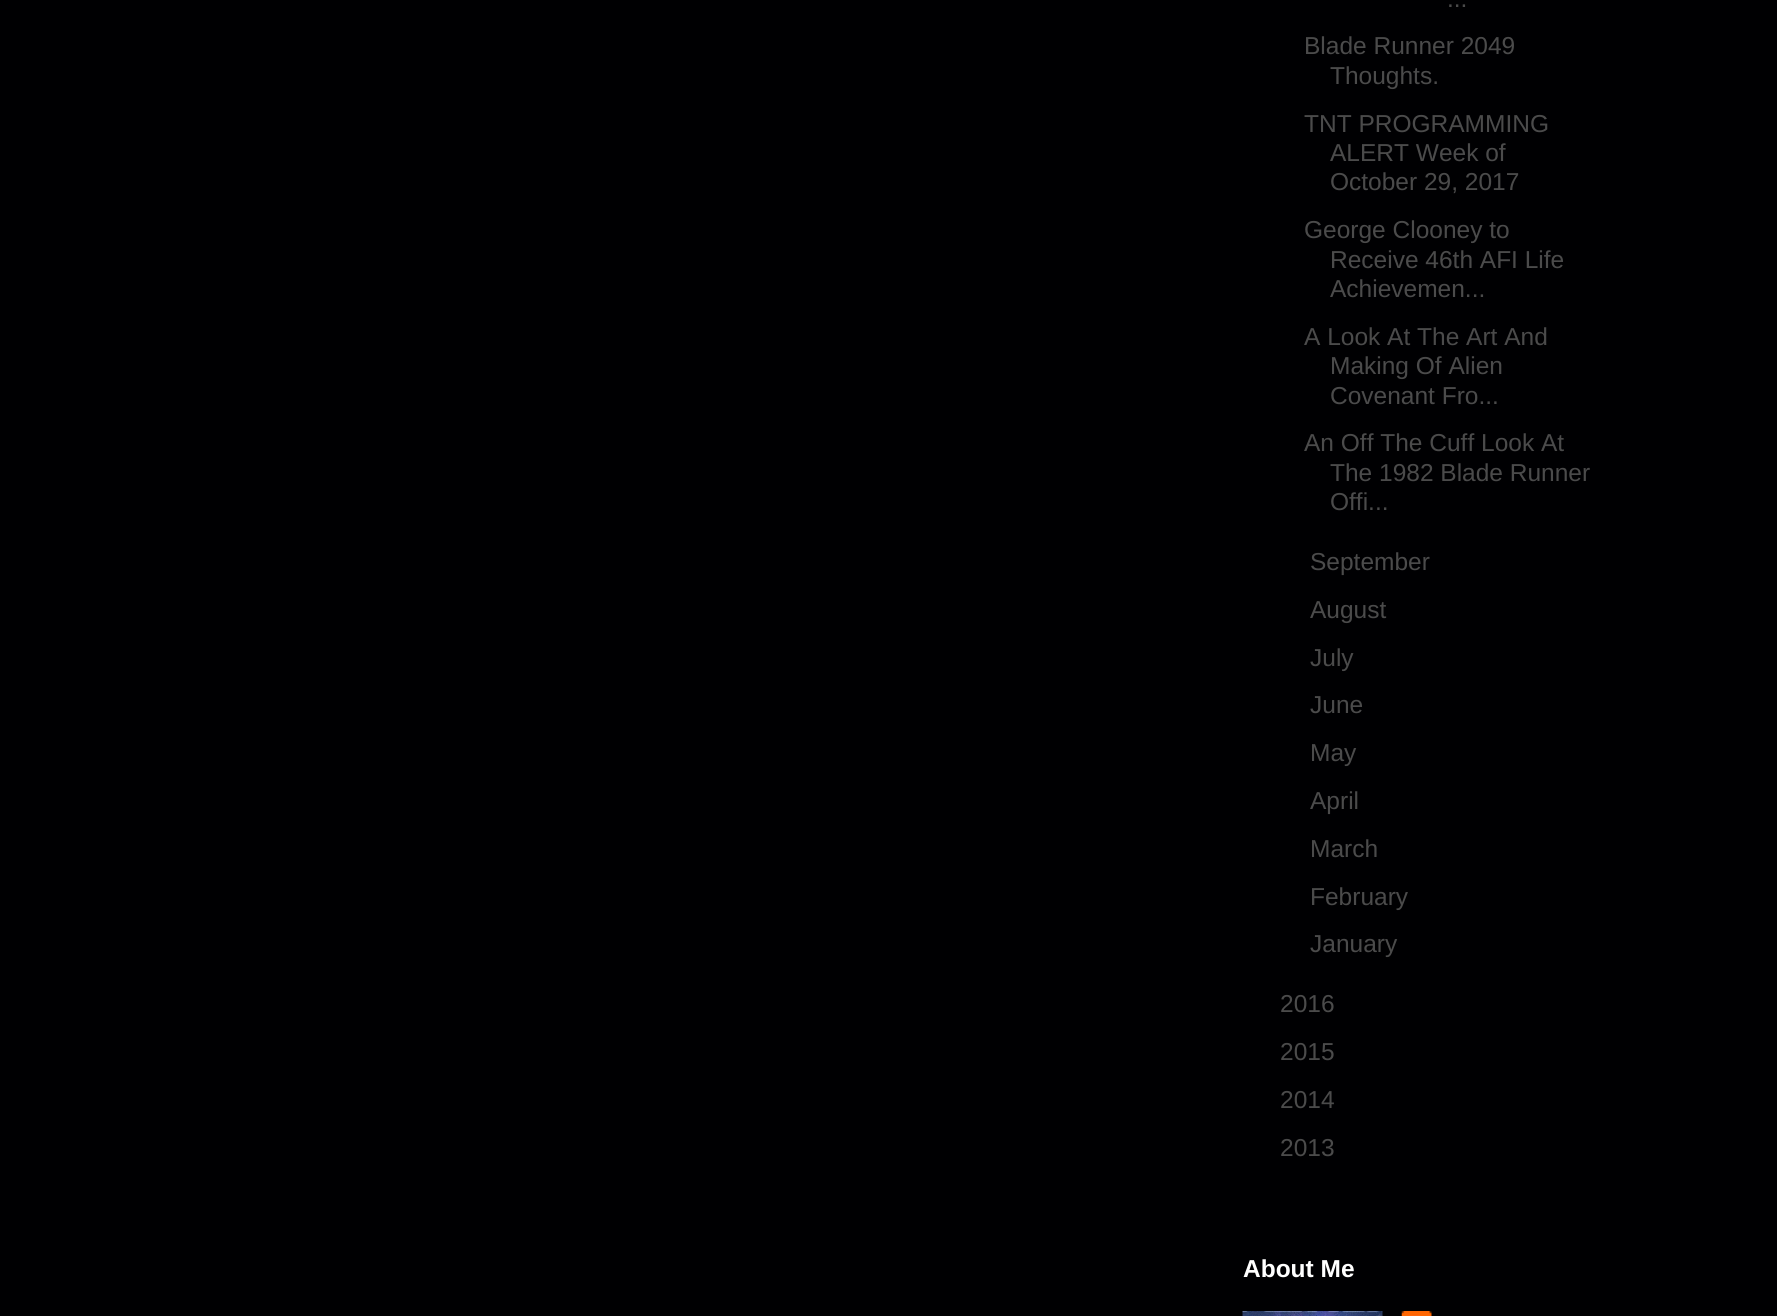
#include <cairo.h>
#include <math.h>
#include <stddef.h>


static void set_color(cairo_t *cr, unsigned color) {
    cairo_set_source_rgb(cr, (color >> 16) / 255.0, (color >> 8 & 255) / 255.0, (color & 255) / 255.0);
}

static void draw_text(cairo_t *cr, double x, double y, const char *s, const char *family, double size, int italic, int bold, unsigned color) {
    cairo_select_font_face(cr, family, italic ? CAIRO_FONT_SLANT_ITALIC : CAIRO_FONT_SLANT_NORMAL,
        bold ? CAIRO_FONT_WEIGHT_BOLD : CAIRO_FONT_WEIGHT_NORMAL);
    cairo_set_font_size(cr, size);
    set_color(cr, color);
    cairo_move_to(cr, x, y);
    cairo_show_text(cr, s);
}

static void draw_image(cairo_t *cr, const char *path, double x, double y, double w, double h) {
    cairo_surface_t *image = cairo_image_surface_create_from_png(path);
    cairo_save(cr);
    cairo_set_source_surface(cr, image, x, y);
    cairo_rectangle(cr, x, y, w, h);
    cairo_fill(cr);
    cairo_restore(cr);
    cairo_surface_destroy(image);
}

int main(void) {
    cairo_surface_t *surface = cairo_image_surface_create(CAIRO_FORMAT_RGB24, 1777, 1316);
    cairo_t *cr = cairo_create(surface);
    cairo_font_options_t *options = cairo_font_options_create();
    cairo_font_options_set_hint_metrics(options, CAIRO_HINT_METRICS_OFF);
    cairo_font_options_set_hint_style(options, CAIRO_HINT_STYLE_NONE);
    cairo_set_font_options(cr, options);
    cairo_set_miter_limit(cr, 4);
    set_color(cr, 0x000002);
    cairo_paint(cr);
    draw_text(cr, 1447, 7, "...", "Liberation Sans", 24.5, 0, 0, 0x4B4B4B);
    draw_text(cr, 1304, 54, "Blade Runner 2049", "Liberation Sans", 24.5, 0, 0, 0x4B4B4B);
    draw_text(cr, 1330, 84, "Thoughts.", "Liberation Sans", 24.5, 0, 0, 0x4B4B4B);
    draw_text(cr, 1304, 132, "TNT PROGRAMMING", "Liberation Sans", 24.5, 0, 0, 0x4B4B4B);
    draw_text(cr, 1330, 161, "ALERT Week of", "Liberation Sans", 24.5, 0, 0, 0x4B4B4B);
    draw_text(cr, 1330, 190, "October 29, 2017", "Liberation Sans", 24.5, 0, 0, 0x4B4B4B);
    draw_text(cr, 1304, 238, "George Clooney to", "Liberation Sans", 24.5, 0, 0, 0x4B4B4B);
    draw_text(cr, 1330, 268, "Receive 46th AFI Life", "Liberation Sans", 24.5, 0, 0, 0x4B4B4B);
    draw_text(cr, 1330, 297, "Achievemen...", "Liberation Sans", 24.5, 0, 0, 0x4B4B4B);
    draw_text(cr, 1304, 345, "A Look At The Art And", "Liberation Sans", 24.5, 0, 0, 0x4B4B4B);
    draw_text(cr, 1330, 374, "Making Of Alien", "Liberation Sans", 24.5, 0, 0, 0x4B4B4B);
    draw_text(cr, 1330, 404, "Covenant Fro...", "Liberation Sans", 24.5, 0, 0, 0x4B4B4B);
    draw_text(cr, 1304, 451, "An Off The Cuff Look At", "Liberation Sans", 24.5, 0, 0, 0x4B4B4B);
    draw_text(cr, 1330, 481, "The 1982 Blade Runner", "Liberation Sans", 24.5, 0, 0, 0x4B4B4B);
    draw_text(cr, 1330, 510, "Offi...", "Liberation Sans", 24.5, 0, 0, 0x4B4B4B);
    draw_text(cr, 1310, 570, "September", "Liberation Sans", 24.5, 0, 0, 0x4B4B4B);
    draw_text(cr, 1310, 618, "August", "Liberation Sans", 24.5, 0, 0, 0x4B4B4B);
    draw_text(cr, 1310, 666, "July", "Liberation Sans", 24.5, 0, 0, 0x4B4B4B);
    draw_text(cr, 1310, 713, "June", "Liberation Sans", 24.5, 0, 0, 0x4B4B4B);
    draw_text(cr, 1310, 761, "May", "Liberation Sans", 24.5, 0, 0, 0x4B4B4B);
    draw_text(cr, 1310, 809, "April", "Liberation Sans", 24.5, 0, 0, 0x4B4B4B);
    draw_text(cr, 1310, 857, "March", "Liberation Sans", 24.5, 0, 0, 0x4B4B4B);
    draw_text(cr, 1310, 905, "February", "Liberation Sans", 24.5, 0, 0, 0x4B4B4B);
    draw_text(cr, 1310, 952, "January", "Liberation Sans", 24.5, 0, 0, 0x4B4B4B);
    draw_text(cr, 1280, 1012, "2016", "Liberation Sans", 24.5, 0, 0, 0x4B4B4B);
    draw_text(cr, 1280, 1060, "2015", "Liberation Sans", 24.5, 0, 0, 0x4B4B4B);
    draw_text(cr, 1280, 1108, "2014", "Liberation Sans", 24.5, 0, 0, 0x4B4B4B);
    draw_text(cr, 1280, 1156, "2013", "Liberation Sans", 24.5, 0, 0, 0x4B4B4B);
    draw_text(cr, 1243, 1277, "About Me", "Liberation Sans", 24.5, 0, 1, 0xFFFFFF);
    draw_image(cr, "assets/img1.png", 1242, 1311, 141, 5);
    draw_image(cr, "assets/img2.png", 1401, 1311, 31, 5);
    cairo_surface_write_to_png(surface, "output.png");
    cairo_font_options_destroy(options);
    cairo_destroy(cr);
    cairo_surface_destroy(surface);
    return 0;
}
